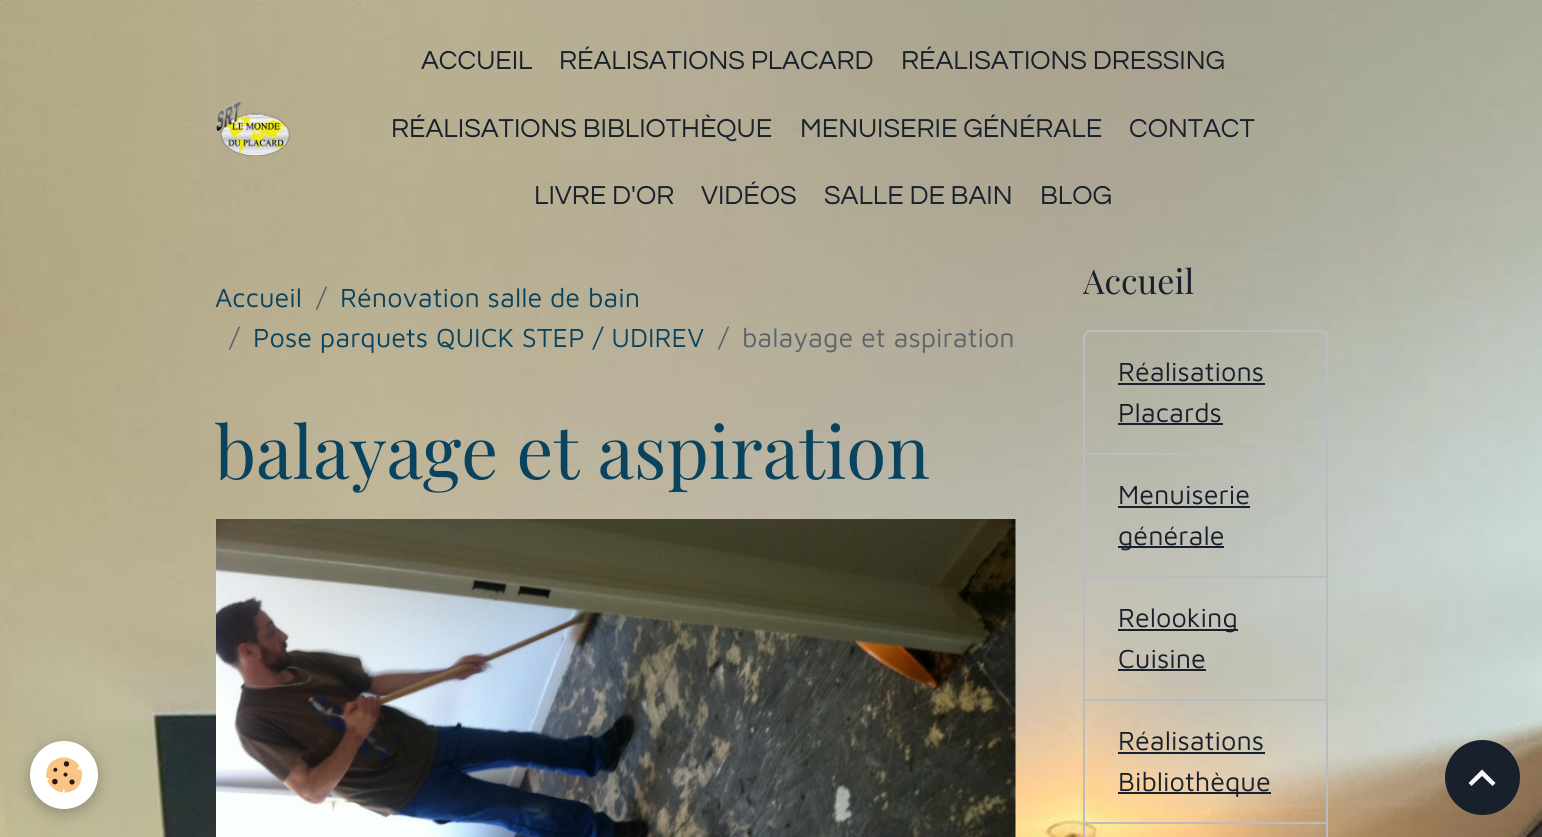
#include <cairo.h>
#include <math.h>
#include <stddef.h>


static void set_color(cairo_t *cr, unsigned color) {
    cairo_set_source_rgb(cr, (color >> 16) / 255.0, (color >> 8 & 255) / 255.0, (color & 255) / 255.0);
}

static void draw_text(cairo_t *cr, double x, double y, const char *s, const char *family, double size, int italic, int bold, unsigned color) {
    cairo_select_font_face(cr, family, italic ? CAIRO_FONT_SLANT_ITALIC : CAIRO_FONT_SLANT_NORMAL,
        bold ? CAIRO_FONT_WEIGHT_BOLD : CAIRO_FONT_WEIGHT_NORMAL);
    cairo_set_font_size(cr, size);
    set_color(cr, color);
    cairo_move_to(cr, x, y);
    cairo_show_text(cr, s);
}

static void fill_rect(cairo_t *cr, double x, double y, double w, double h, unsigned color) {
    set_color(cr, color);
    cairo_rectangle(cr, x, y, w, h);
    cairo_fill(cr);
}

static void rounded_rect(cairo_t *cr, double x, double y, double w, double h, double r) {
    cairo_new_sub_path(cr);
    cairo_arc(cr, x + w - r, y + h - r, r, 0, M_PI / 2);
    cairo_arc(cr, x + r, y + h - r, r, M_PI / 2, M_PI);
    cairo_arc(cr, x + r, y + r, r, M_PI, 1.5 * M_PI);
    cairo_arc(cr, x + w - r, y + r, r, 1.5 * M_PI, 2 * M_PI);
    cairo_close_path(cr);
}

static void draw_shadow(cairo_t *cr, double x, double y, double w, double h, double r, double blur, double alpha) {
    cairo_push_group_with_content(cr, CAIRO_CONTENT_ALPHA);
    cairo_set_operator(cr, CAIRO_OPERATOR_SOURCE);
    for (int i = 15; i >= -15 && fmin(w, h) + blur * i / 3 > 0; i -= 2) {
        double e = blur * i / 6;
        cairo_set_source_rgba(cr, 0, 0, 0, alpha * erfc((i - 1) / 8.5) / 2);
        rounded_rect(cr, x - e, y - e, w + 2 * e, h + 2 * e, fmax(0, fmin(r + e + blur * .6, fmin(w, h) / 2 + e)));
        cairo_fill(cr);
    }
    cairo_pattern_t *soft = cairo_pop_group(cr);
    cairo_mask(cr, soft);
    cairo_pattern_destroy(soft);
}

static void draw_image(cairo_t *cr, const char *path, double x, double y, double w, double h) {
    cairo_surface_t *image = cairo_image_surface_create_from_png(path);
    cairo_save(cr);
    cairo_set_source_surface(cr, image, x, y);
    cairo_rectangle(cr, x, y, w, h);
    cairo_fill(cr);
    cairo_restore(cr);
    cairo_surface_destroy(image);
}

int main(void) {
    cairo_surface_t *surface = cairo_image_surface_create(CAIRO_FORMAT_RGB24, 1542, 837);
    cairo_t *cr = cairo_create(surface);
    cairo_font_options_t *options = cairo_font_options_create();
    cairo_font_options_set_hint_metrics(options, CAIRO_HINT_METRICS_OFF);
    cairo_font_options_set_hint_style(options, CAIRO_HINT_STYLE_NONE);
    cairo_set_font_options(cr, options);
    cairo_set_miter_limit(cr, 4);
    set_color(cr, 0xFFFFFF);
    cairo_paint(cr);
    draw_image(cr, "assets/img1.png", 0, 0, 1542, 837);
    draw_image(cr, "assets/img2.png", 216, 100, 74, 56);
    draw_text(cr, 421, 69, "ACCUEIL", "Questrial", 27, 0, 0, 0x18202B);
    draw_text(cr, 559, 69, "RÉALISATIONS PLACARD", "Questrial", 27, 0, 0, 0x18202B);
    draw_text(cr, 901, 69, "RÉALISATIONS DRESSING", "Questrial", 27, 0, 0, 0x18202B);
    draw_text(cr, 391, 137, "RÉALISATIONS BIBLIOTHÈQUE", "Questrial", 27, 0, 0, 0x18202B);
    draw_text(cr, 800, 137, "MENUISERIE GÉNÉRALE", "Questrial", 27, 0, 0, 0x18202B);
    draw_text(cr, 1129, 137, "CONTACT", "Questrial", 27, 0, 0, 0x18202B);
    draw_text(cr, 534, 204, "LIVRE D'OR", "Questrial", 27, 0, 0, 0x18202B);
    draw_text(cr, 701, 204, "VIDÉOS", "Questrial", 27, 0, 0, 0x18202B);
    draw_text(cr, 824, 204, "SALLE DE BAIN", "Questrial", 27, 0, 0, 0x18202B);
    draw_text(cr, 1040, 204, "BLOG", "Questrial", 27, 0, 0, 0x18202B);
    set_color(cr, 0x000000);
    draw_shadow(cr, 30, 746, 68, 67, 33.5, 7.5, 0.24);
    set_color(cr, 0xFFFFFF);
    cairo_arc(cr, 64, 775, 34, 0, 2 * M_PI);
    cairo_fill(cr);
    draw_image(cr, "assets/img3.png", 46, 757, 37, 36);
    draw_text(cr, 215, 307, "Accueil", "Maven Pro", 27, 0, 0, 0x0A435E);
    draw_text(cr, 316, 307, "/", "Maven Pro", 27, 0, 0, 0x5D636B);
    draw_text(cr, 340, 307, "Rénovation salle de bain", "Maven Pro", 27, 0, 0, 0x0A435E);
    draw_text(cr, 229, 347, "/", "Maven Pro", 27, 0, 0, 0x5D636B);
    draw_text(cr, 253, 347, "Pose parquets QUICK STEP / UDIREV", "Maven Pro", 27, 0, 0, 0x0A435E);
    draw_text(cr, 718, 347, "/", "Maven Pro", 27, 0, 0, 0x5D636B);
    draw_text(cr, 742, 347, "balayage et aspiration", "Maven Pro", 27, 0, 0, 0x5D636B);
    draw_text(cr, 215, 479, "balayage et aspiration", "Playfair Display", 73, 0, 0, 0x0A435E);
    draw_image(cr, "assets/img4.png", 216, 519, 800, 318);
    draw_text(cr, 1083, 294, "Accueil", "Playfair Display", 34, 0, 0, 0x18202B);
    cairo_new_path(cr);
    cairo_move_to(cr, 1091, 331);
    cairo_line_to(cr, 1320, 331);
    cairo_curve_to(cr, 1324, 331, 1327, 334, 1327, 338);
    cairo_line_to(cr, 1327, 454);
    cairo_line_to(cr, 1084, 454);
    cairo_line_to(cr, 1084, 338);
    cairo_curve_to(cr, 1084, 334, 1087, 331, 1091, 331);
    cairo_close_path(cr);
    set_color(cr, 0xBABCBF);
    cairo_stroke(cr);
    draw_text(cr, 1118, 381, "Réalisations", "Maven Pro", 27, 0, 0, 0x18202B);
    fill_rect(cr, 1118, 383, 147, 2, 0x18202B);
    draw_text(cr, 1118, 422, "Placards", "Maven Pro", 27, 0, 0, 0x18202B);
    fill_rect(cr, 1118, 423, 105, 2, 0x18202B);
    cairo_rectangle(cr, 1084, 454, 243, 123);
    set_color(cr, 0xBABCBF);
    cairo_stroke(cr);
    draw_text(cr, 1118, 504, "Menuiserie", "Maven Pro", 27, 0, 0, 0x18202B);
    fill_rect(cr, 1118, 506, 132, 2, 0x18202B);
    fill_rect(cr, 1118, 546, 106, 2, 0x18202B);
    draw_text(cr, 1118, 545, "générale", "Maven Pro", 27, 0, 0, 0x18202B);
    cairo_rectangle(cr, 1084, 577, 243, 123);
    set_color(cr, 0xBABCBF);
    cairo_stroke(cr);
    fill_rect(cr, 1118, 629, 120, 2, 0x18202B);
    draw_text(cr, 1118, 627, "Relooking", "Maven Pro", 27, 0, 0, 0x18202B);
    draw_text(cr, 1118, 668, "Cuisine", "Maven Pro", 27, 0, 0, 0x18202B);
    fill_rect(cr, 1118, 669, 88, 2, 0x18202B);
    cairo_rectangle(cr, 1084, 700, 243, 123);
    set_color(cr, 0xBABCBF);
    cairo_stroke(cr);
    draw_text(cr, 1118, 750, "Réalisations", "Maven Pro", 27, 0, 0, 0x18202B);
    fill_rect(cr, 1118, 752, 147, 2, 0x18202B);
    fill_rect(cr, 1118, 792, 153, 2, 0x18202B);
    draw_text(cr, 1118, 791, "Bibliothèque", "Maven Pro", 27, 0, 0, 0x18202B);
    cairo_rectangle(cr, 1084, 823, 243, 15);
    set_color(cr, 0xBABCBF);
    cairo_stroke(cr);
    set_color(cr, 0x18202B);
    cairo_arc(cr, 1482.5, 777.5, 37.5, 0, 2 * M_PI);
    cairo_fill(cr);
    set_color(cr, 0xF8F8F8);
    cairo_new_path(cr);
    cairo_move_to(cr, 1482, 769.5);
    cairo_line_to(cr, 1495.5, 783);
    cairo_line_to(cr, 1492.5, 786);
    cairo_line_to(cr, 1482, 776);
    cairo_line_to(cr, 1471.5, 786);
    cairo_line_to(cr, 1468.5, 783);
    cairo_close_path(cr);
    cairo_fill(cr);
    cairo_surface_write_to_png(surface, "output.png");
    cairo_font_options_destroy(options);
    cairo_destroy(cr);
    cairo_surface_destroy(surface);
    return 0;
}
